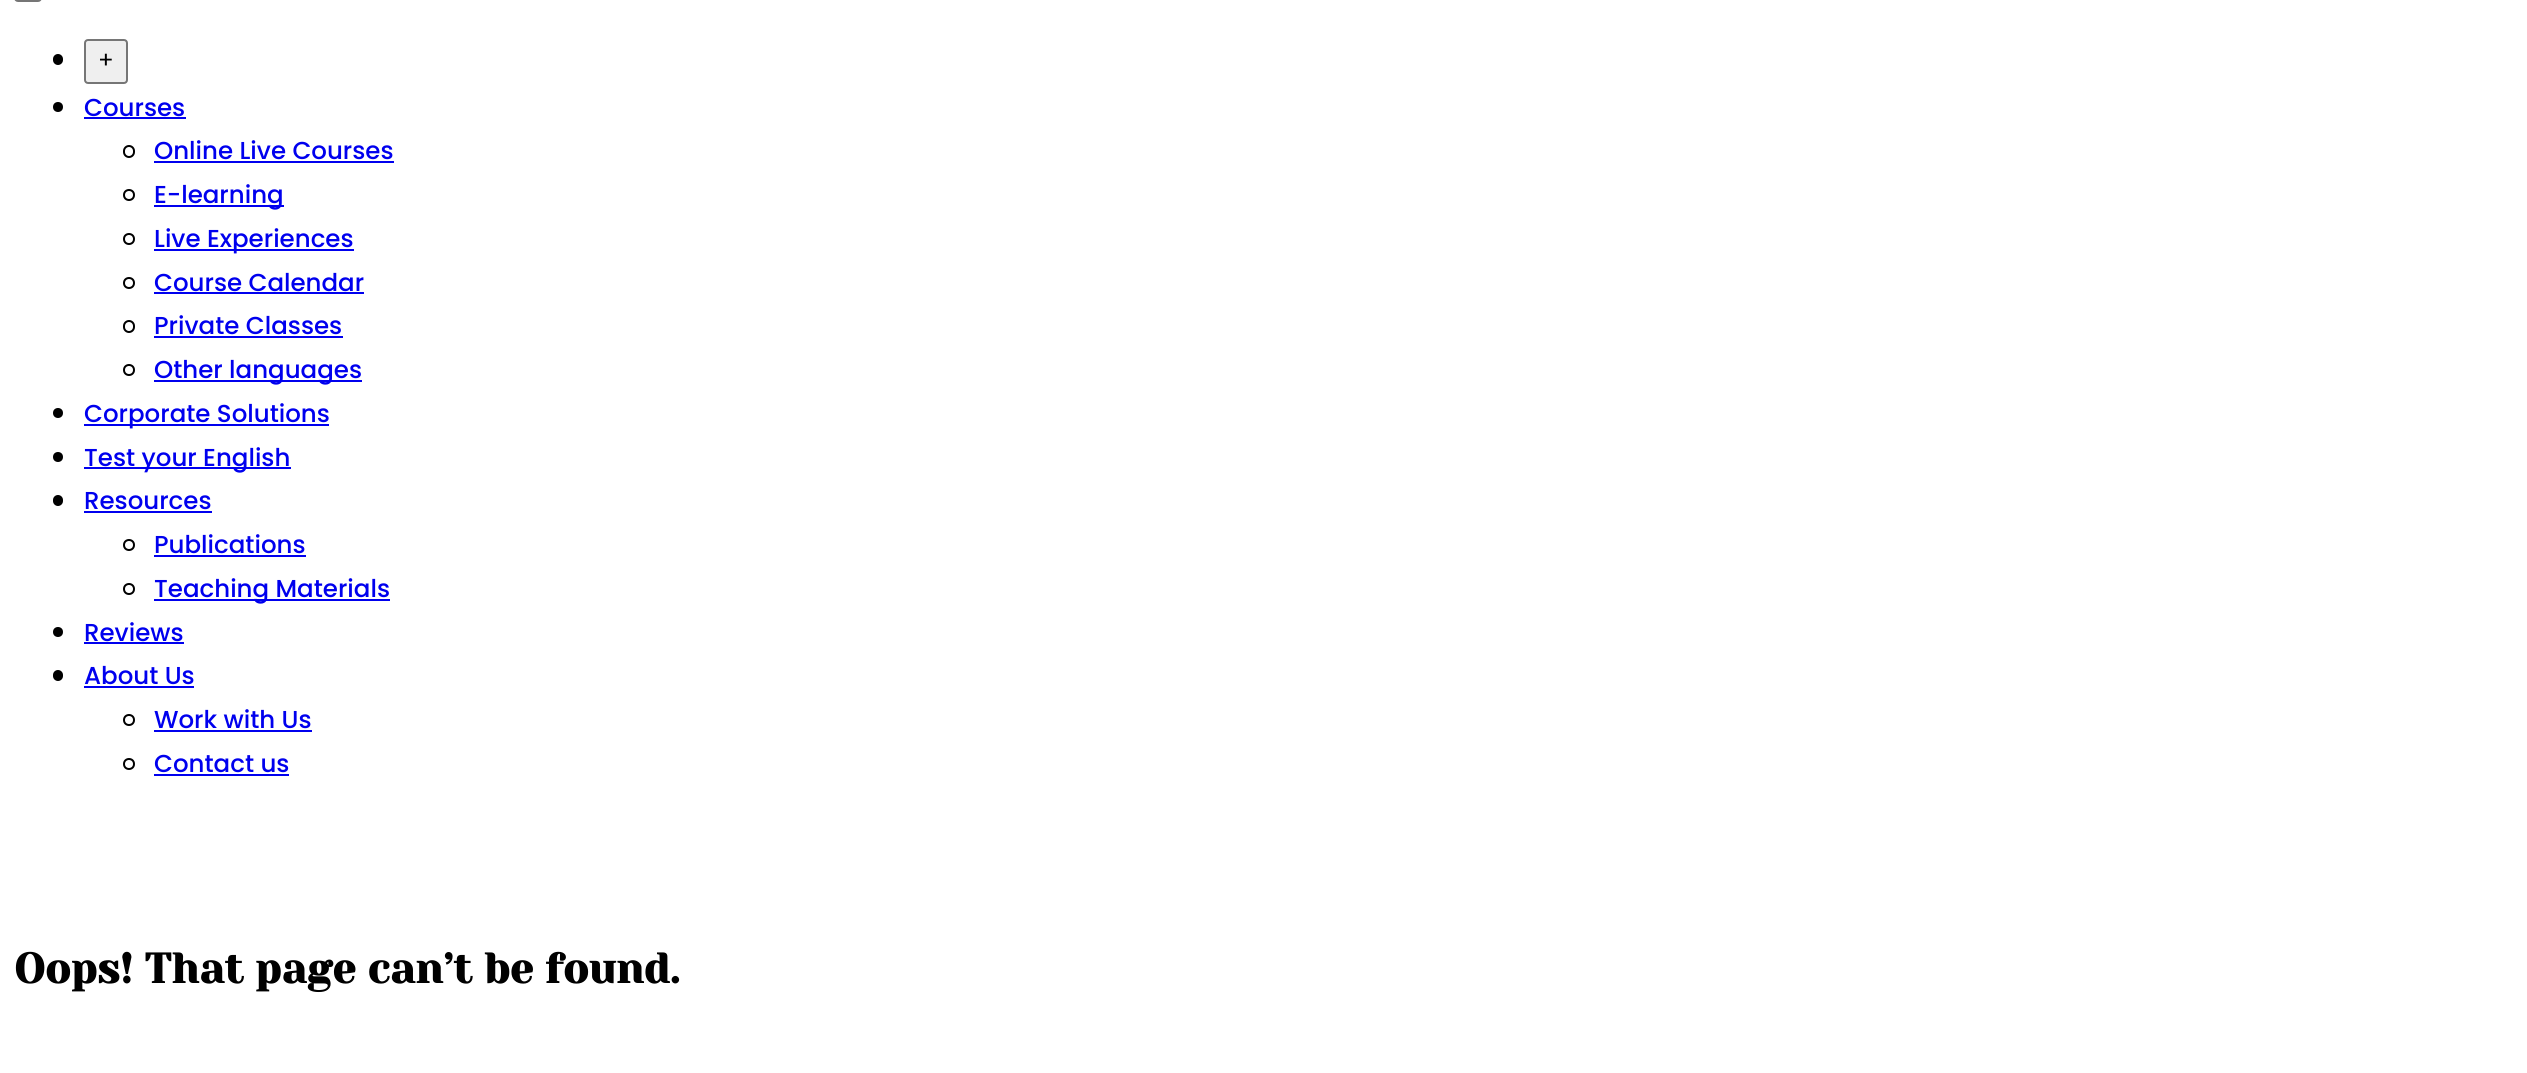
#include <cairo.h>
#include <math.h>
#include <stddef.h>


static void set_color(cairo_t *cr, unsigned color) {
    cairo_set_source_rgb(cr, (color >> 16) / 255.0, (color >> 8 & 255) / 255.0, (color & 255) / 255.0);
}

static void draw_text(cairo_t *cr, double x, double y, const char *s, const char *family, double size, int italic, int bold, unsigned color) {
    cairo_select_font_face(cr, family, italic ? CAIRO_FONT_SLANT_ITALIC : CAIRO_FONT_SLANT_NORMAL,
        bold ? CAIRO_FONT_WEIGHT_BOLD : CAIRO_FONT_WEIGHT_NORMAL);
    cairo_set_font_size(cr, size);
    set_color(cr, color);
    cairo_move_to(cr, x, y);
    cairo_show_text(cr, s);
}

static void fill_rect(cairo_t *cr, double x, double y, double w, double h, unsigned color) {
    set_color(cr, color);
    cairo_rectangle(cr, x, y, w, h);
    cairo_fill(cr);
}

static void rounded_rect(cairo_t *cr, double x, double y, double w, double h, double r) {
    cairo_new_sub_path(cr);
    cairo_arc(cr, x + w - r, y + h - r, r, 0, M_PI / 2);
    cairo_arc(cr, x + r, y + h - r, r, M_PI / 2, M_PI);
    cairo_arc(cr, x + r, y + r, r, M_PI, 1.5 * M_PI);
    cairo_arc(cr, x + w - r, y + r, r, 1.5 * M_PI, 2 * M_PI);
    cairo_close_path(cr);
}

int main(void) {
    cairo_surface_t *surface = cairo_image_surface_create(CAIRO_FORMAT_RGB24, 2527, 1073);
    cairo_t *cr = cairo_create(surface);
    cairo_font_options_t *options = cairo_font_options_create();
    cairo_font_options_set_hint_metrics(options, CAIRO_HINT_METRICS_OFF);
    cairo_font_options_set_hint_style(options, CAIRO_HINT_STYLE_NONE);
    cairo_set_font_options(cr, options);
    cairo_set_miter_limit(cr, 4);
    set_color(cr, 0xFFFFFF);
    cairo_paint(cr);
    rounded_rect(cr, 15, -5, 26, 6, 3);
    set_color(cr, 0x767676);
    cairo_stroke(cr);
    set_color(cr, 0x000000);
    rounded_rect(cr, 53, 54, 10, 11, 5);
    cairo_fill(cr);
    set_color(cr, 0xEFEFEF);
    rounded_rect(cr, 85, 40, 42, 43, 3);
    cairo_fill_preserve(cr);
    set_color(cr, 0x767676);
    cairo_stroke(cr);
    draw_text(cr, 98, 68, "+", "Poppins", 23, 0, 0, 0x000000);
    cairo_new_path(cr);
    cairo_arc(cr, 58, 107, 5, 0, 2 * M_PI);
    cairo_fill(cr);
    draw_text(cr, 84, 116, "Courses", "Poppins Medium", 24.5, 0, 0, 0x0000EE);
    fill_rect(cr, 84, 117, 102, 2, 0x0000EE);
    rounded_rect(cr, 124, 146, 10, 11, 5);
    set_color(cr, 0x000000);
    cairo_stroke(cr);
    draw_text(cr, 154, 159, "Online Live Courses", "Poppins Medium", 24.5, 0, 0, 0x0000EE);
    fill_rect(cr, 154, 161, 240, 2, 0x0000EE);
    cairo_new_path(cr);
    cairo_arc(cr, 129, 195, 5, 0, 2 * M_PI);
    set_color(cr, 0x000000);
    cairo_stroke(cr);
    fill_rect(cr, 154, 205, 130, 2, 0x0000EE);
    draw_text(cr, 154, 203, "E-learning", "Poppins Medium", 24.5, 0, 0, 0x0000EE);
    cairo_new_path(cr);
    cairo_arc(cr, 129, 239, 5, 0, 2 * M_PI);
    set_color(cr, 0x000000);
    cairo_stroke(cr);
    fill_rect(cr, 154, 249, 200, 2, 0x0000EE);
    draw_text(cr, 154, 247, "Live Experiences", "Poppins Medium", 24.5, 0, 0, 0x0000EE);
    cairo_new_path(cr);
    cairo_arc(cr, 129, 283, 5, 0, 2 * M_PI);
    set_color(cr, 0x000000);
    cairo_stroke(cr);
    draw_text(cr, 154, 291, "Course Calendar", "Poppins Medium", 24.5, 0, 0, 0x0000EE);
    fill_rect(cr, 154, 292, 210, 2, 0x0000EE);
    rounded_rect(cr, 124, 321, 10, 11, 5);
    set_color(cr, 0x000000);
    cairo_stroke(cr);
    draw_text(cr, 154, 334, "Private Classes", "Poppins Medium", 24.5, 0, 0, 0x0000EE);
    fill_rect(cr, 154, 336, 189, 2, 0x0000EE);
    cairo_new_path(cr);
    cairo_arc(cr, 129, 370, 5, 0, 2 * M_PI);
    set_color(cr, 0x000000);
    cairo_stroke(cr);
    fill_rect(cr, 154, 380, 208, 2, 0x0000EE);
    draw_text(cr, 154, 378, "Other languages", "Poppins Medium", 24.5, 0, 0, 0x0000EE);
    set_color(cr, 0x000000);
    cairo_new_path(cr);
    cairo_arc(cr, 58, 413, 5, 0, 2 * M_PI);
    cairo_fill(cr);
    fill_rect(cr, 84, 424, 245, 2, 0x0000EE);
    draw_text(cr, 84, 422, "Corporate Solutions", "Poppins Medium", 24.5, 0, 0, 0x0000EE);
    set_color(cr, 0x000000);
    cairo_new_path(cr);
    cairo_arc(cr, 58, 457, 5, 0, 2 * M_PI);
    cairo_fill(cr);
    fill_rect(cr, 84, 467, 207, 2, 0x0000EE);
    draw_text(cr, 84, 466, "Test your English", "Poppins Medium", 24.5, 0, 0, 0x0000EE);
    set_color(cr, 0x000000);
    rounded_rect(cr, 53, 495, 10, 11, 5);
    cairo_fill(cr);
    draw_text(cr, 84, 509, "Resources", "Poppins Medium", 24.5, 0, 0, 0x0000EE);
    fill_rect(cr, 84, 511, 128, 2, 0x0000EE);
    cairo_new_path(cr);
    cairo_arc(cr, 129, 545, 5, 0, 2 * M_PI);
    set_color(cr, 0x000000);
    cairo_stroke(cr);
    draw_text(cr, 154, 553, "Publications", "Poppins Medium", 24.5, 0, 0, 0x0000EE);
    fill_rect(cr, 154, 555, 152, 2, 0x0000EE);
    cairo_new_path(cr);
    cairo_arc(cr, 129, 589, 5, 0, 2 * M_PI);
    set_color(cr, 0x000000);
    cairo_stroke(cr);
    fill_rect(cr, 154, 599, 236, 2, 0x0000EE);
    draw_text(cr, 154, 597, "Teaching Materials", "Poppins Medium", 24.5, 0, 0, 0x0000EE);
    set_color(cr, 0x000000);
    cairo_new_path(cr);
    cairo_arc(cr, 58, 632, 5, 0, 2 * M_PI);
    cairo_fill(cr);
    draw_text(cr, 84, 641, "Reviews", "Poppins Medium", 24.5, 0, 0, 0x0000EE);
    fill_rect(cr, 84, 642, 100, 2, 0x0000EE);
    set_color(cr, 0x000000);
    rounded_rect(cr, 53, 670, 10, 11, 5);
    cairo_fill(cr);
    draw_text(cr, 84, 684, "About Us", "Poppins Medium", 24.5, 0, 0, 0x0000EE);
    fill_rect(cr, 84, 686, 110, 2, 0x0000EE);
    cairo_new_path(cr);
    cairo_arc(cr, 129, 720, 5, 0, 2 * M_PI);
    set_color(cr, 0x000000);
    cairo_stroke(cr);
    draw_text(cr, 154, 728, "Work with Us", "Poppins Medium", 24.5, 0, 0, 0x0000EE);
    fill_rect(cr, 154, 730, 158, 2, 0x0000EE);
    cairo_new_path(cr);
    cairo_arc(cr, 129, 764, 5, 0, 2 * M_PI);
    set_color(cr, 0x000000);
    cairo_stroke(cr);
    draw_text(cr, 154, 772, "Contact us", "Poppins Medium", 24.5, 0, 0, 0x0000EE);
    fill_rect(cr, 154, 774, 135, 2, 0x0000EE);
    draw_text(cr, 14, 983, "Oops! That page can’t be found.", "Yeseva One", 42, 0, 1, 0x000000);
    cairo_surface_write_to_png(surface, "output.png");
    cairo_font_options_destroy(options);
    cairo_destroy(cr);
    cairo_surface_destroy(surface);
    return 0;
}
